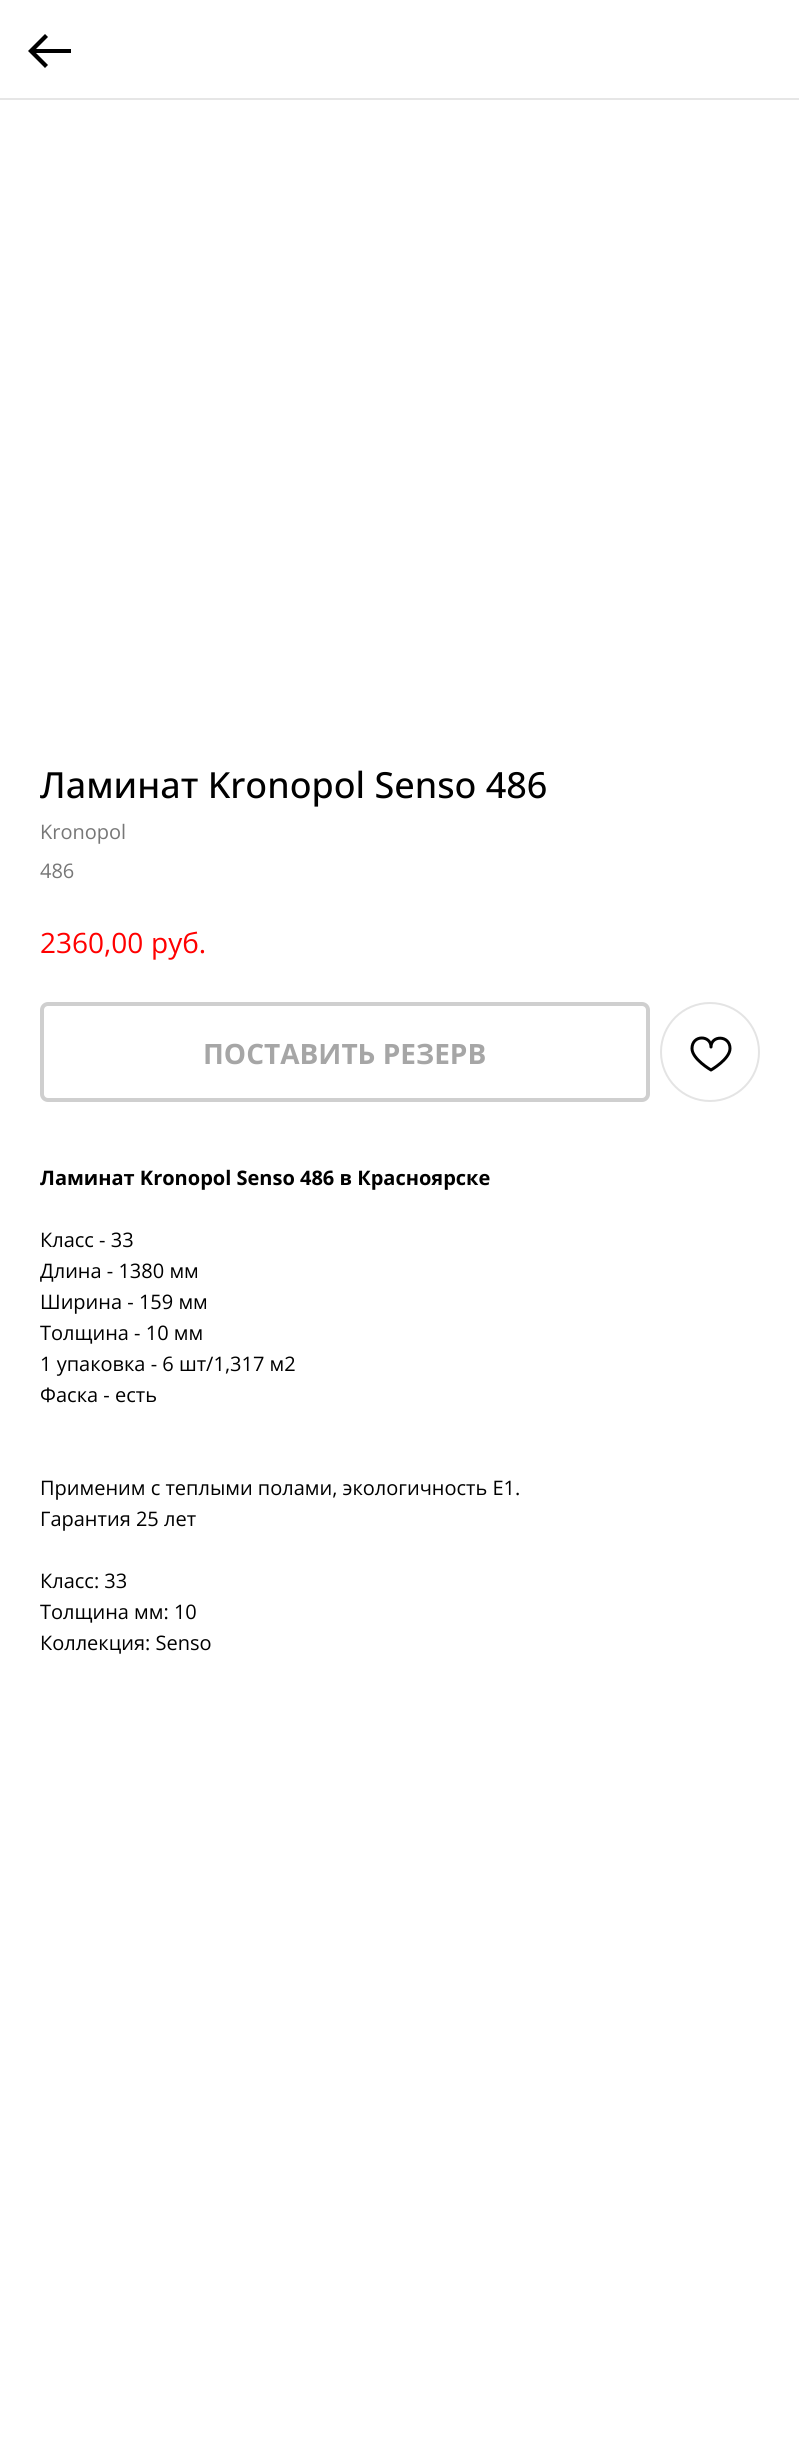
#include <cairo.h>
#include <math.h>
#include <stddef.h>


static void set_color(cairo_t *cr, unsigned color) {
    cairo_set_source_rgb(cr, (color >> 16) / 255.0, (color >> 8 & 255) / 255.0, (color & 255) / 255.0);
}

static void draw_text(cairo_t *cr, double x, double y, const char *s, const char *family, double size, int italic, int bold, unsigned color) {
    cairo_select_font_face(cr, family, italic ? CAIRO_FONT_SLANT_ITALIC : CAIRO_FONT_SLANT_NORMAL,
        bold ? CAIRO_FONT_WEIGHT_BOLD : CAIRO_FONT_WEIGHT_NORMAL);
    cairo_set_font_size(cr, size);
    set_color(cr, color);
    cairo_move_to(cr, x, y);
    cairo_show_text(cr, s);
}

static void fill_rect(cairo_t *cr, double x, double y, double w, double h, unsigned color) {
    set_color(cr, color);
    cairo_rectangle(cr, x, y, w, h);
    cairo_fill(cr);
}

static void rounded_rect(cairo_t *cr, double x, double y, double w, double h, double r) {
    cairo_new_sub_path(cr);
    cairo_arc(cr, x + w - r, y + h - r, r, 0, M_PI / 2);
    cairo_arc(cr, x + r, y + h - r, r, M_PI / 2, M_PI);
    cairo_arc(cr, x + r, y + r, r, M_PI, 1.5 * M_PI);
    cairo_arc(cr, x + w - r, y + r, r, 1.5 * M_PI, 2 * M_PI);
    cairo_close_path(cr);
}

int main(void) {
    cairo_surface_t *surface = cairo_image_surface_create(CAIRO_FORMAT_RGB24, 799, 2451);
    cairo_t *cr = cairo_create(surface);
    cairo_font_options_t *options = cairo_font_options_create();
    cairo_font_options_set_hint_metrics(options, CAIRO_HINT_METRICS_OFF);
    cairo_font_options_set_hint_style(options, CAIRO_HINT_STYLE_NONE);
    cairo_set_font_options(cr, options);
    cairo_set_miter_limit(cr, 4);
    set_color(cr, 0xFFFFFF);
    cairo_paint(cr);
    fill_rect(cr, 0, 98, 799, 2, 0xE6E6E6);
    set_color(cr, 0x000000);
    cairo_new_path(cr);
    cairo_move_to(cr, 45, 34);
    cairo_line_to(cr, 48, 37);
    cairo_line_to(cr, 36, 49);
    cairo_line_to(cr, 71, 49);
    cairo_line_to(cr, 71, 53);
    cairo_line_to(cr, 36, 53);
    cairo_line_to(cr, 48, 65);
    cairo_line_to(cr, 45, 68);
    cairo_line_to(cr, 28, 51);
    cairo_close_path(cr);
    cairo_fill(cr);
    draw_text(cr, 40, 798, "Ламинат Kronopol Senso 486", "Open Sans Medium", 36, 0, 0, 0x000000);
    draw_text(cr, 40, 839, "Kronopol", "Open Sans", 20, 0, 0, 0x777777);
    draw_text(cr, 40, 878, "486", "Open Sans", 20, 0, 0, 0x777777);
    draw_text(cr, 40, 953, "2360,00", "Open Sans", 28, 0, 0, 0xFF0000);
    draw_text(cr, 151, 953, "руб.", "Open Sans", 28, 0, 0, 0xFF0000);
    rounded_rect(cr, 42, 1004, 606, 96, 6);
    set_color(cr, 0xCFCFCF);
    cairo_set_line_width(cr, 4);
    cairo_stroke(cr);
    draw_text(cr, 203, 1064, "ПОСТАВИТЬ РЕЗЕРВ", "Open Sans", 28, 0, 1, 0xA6A6A6);
    cairo_new_path(cr);
    cairo_arc(cr, 710, 1052, 49, 0, 2 * M_PI);
    set_color(cr, 0xE4E4E4);
    cairo_set_line_width(cr, 2);
    cairo_stroke(cr);
    cairo_new_path(cr);
    cairo_move_to(cr, 730, 1048.5);
    cairo_curve_to(cr, 730, 1059, 711, 1070, 711, 1070);
    cairo_curve_to(cr, 711, 1070, 692, 1059, 692, 1048.5);
    cairo_curve_to(cr, 692, 1034.5, 711, 1035, 711, 1047);
    cairo_curve_to(cr, 711, 1035, 730, 1035, 730, 1048.5);
    cairo_close_path(cr);
    set_color(cr, 0x000000);
    cairo_set_line_width(cr, 3);
    cairo_set_line_join(cr, CAIRO_LINE_JOIN_ROUND);
    cairo_stroke(cr);
    draw_text(cr, 40, 1185, "Ламинат Kronopol Senso 486 в Красноярске", "Open Sans", 20, 0, 1, 0x000000);
    draw_text(cr, 40, 1247, "Класс - 33", "Open Sans", 20, 0, 0, 0x000000);
    draw_text(cr, 40, 1278, "Длина - 1380 мм", "Open Sans", 20, 0, 0, 0x000000);
    draw_text(cr, 40, 1309, "Ширина - 159 мм", "Open Sans", 20, 0, 0, 0x000000);
    draw_text(cr, 40, 1340, "Толщина - 10 мм", "Open Sans", 20, 0, 0, 0x000000);
    draw_text(cr, 40, 1371, "1 упаковка - 6 шт/1,317 м2", "Open Sans", 20, 0, 0, 0x000000);
    draw_text(cr, 40, 1402, "Фаска - есть", "Open Sans", 20, 0, 0, 0x000000);
    draw_text(cr, 40, 1495, "Применим с теплыми полами, экологичность Е1.", "Open Sans", 20, 0, 0, 0x000000);
    draw_text(cr, 40, 1526, "Гарантия 25 лет", "Open Sans", 20, 0, 0, 0x000000);
    draw_text(cr, 40, 1588, "Класс: 33", "Open Sans", 20, 0, 0, 0x000000);
    draw_text(cr, 40, 1619, "Толщина мм: 10", "Open Sans", 20, 0, 0, 0x000000);
    draw_text(cr, 40, 1650, "Коллекция: Senso", "Open Sans", 20, 0, 0, 0x000000);
    cairo_surface_write_to_png(surface, "output.png");
    cairo_font_options_destroy(options);
    cairo_destroy(cr);
    cairo_surface_destroy(surface);
    return 0;
}
